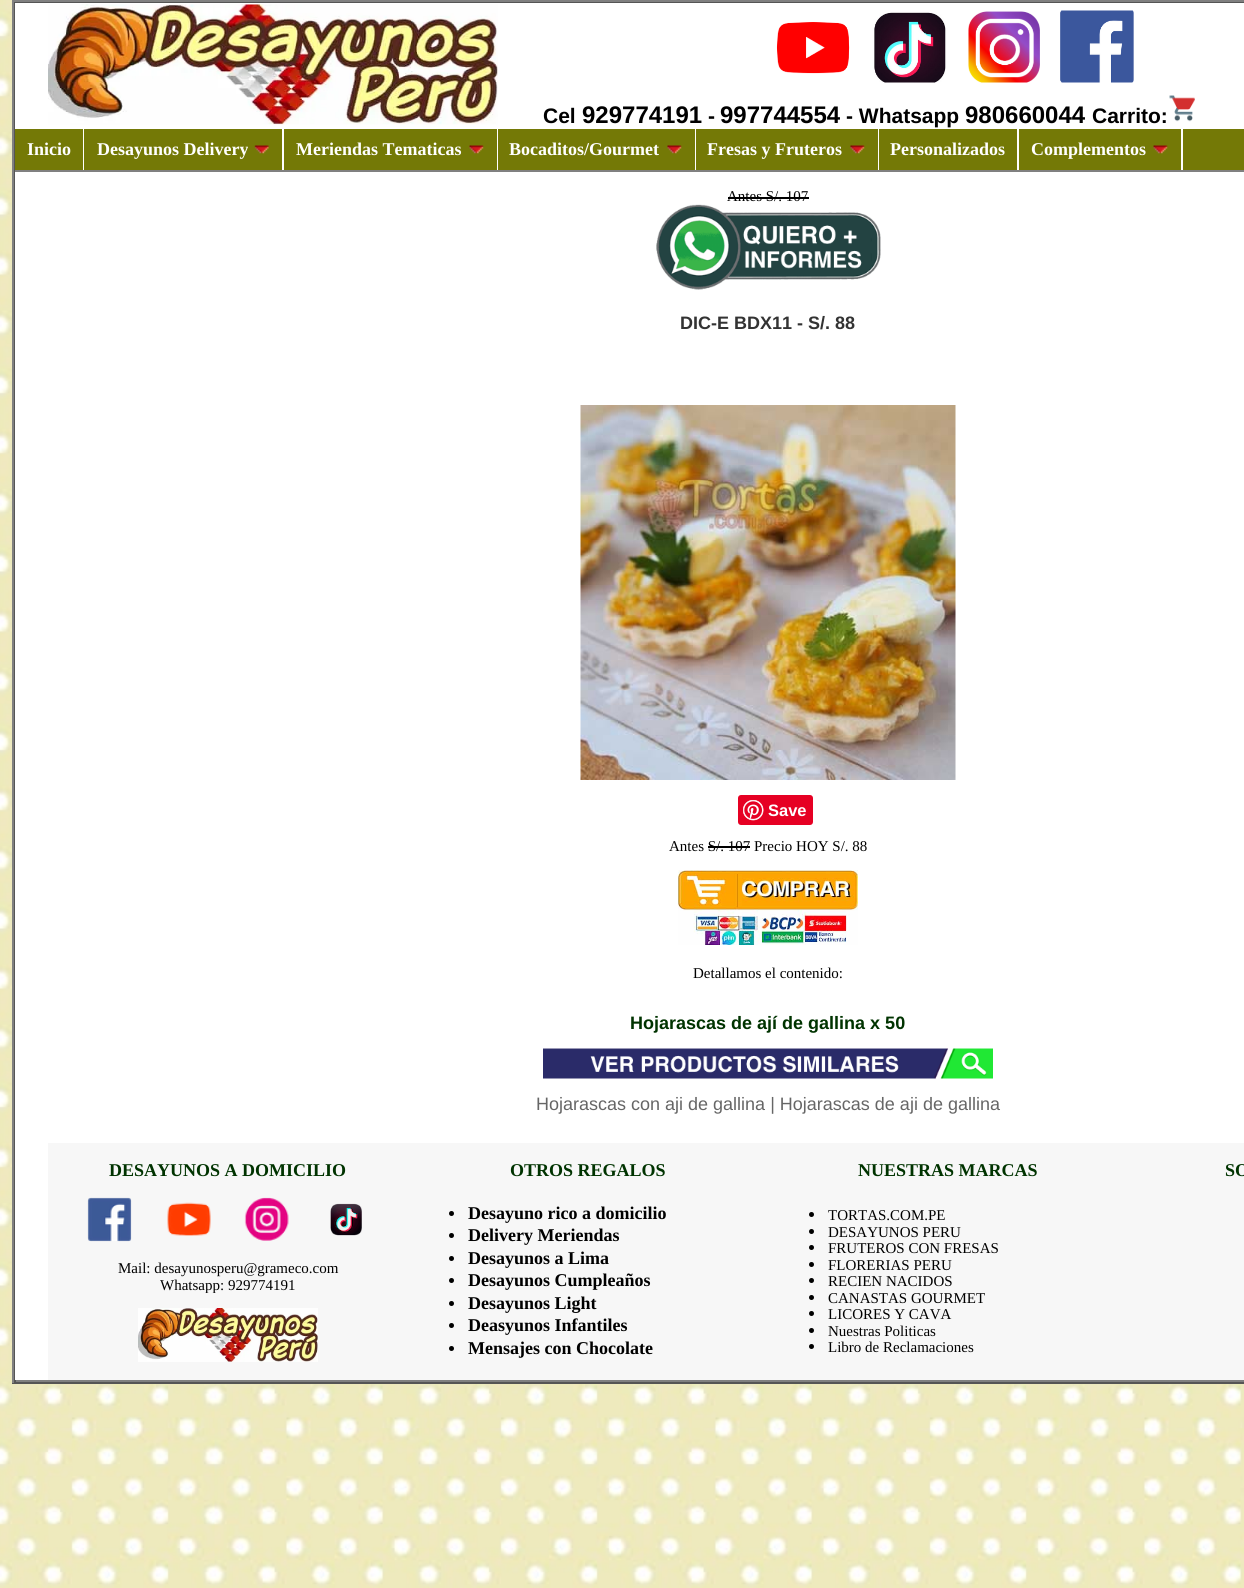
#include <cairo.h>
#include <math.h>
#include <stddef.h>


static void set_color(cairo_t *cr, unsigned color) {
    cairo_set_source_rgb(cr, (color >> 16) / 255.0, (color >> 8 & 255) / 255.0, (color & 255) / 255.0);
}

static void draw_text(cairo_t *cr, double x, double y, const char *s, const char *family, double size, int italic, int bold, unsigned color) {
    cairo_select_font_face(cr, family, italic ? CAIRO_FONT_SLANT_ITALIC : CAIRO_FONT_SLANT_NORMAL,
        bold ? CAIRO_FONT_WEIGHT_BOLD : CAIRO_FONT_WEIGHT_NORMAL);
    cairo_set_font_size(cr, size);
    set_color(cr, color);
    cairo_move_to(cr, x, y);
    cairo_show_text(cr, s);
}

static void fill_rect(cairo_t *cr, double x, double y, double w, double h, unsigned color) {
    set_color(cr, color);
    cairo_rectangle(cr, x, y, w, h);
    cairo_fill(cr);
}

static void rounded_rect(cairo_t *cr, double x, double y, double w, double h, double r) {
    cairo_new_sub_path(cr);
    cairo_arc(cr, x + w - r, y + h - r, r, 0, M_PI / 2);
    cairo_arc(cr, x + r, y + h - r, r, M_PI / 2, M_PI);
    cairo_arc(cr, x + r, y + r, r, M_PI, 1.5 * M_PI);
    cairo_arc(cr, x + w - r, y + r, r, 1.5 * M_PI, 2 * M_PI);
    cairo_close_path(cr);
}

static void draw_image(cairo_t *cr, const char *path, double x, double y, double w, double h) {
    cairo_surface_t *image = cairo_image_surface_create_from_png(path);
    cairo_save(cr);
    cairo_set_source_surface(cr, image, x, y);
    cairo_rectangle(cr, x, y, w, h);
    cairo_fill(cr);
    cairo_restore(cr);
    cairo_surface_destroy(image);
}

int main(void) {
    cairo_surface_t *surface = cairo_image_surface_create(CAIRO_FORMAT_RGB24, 1244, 1588);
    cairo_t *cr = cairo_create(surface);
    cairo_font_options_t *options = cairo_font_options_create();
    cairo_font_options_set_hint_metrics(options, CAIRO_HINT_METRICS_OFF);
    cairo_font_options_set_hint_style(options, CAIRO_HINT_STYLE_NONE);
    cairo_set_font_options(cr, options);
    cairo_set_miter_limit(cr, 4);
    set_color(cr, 0xFFFFFF);
    cairo_paint(cr);
    draw_image(cr, "assets/img1.png", 0, 0, 1244, 1588);
    fill_rect(cr, 12, 0, 1232, 2, 0x808080);
    fill_rect(cr, 12, 1382, 1232, 2, 0x555555);
    fill_rect(cr, 12, 0, 2, 1383, 0x808080);
    fill_rect(cr, 14, 2, 1230, 1, 0x555555);
    fill_rect(cr, 14, 1380, 1230, 2, 0x808080);
    fill_rect(cr, 14, 2, 2, 1380, 0x555555);
    fill_rect(cr, 15, 3, 1229, 126, 0xFFFFFF);
    draw_image(cr, "assets/img2.png", 48, 4, 450, 121);
    draw_image(cr, "assets/img3.png", 776, 10, 358, 73);
    draw_text(cr, 543, 123, "Cel", "Liberation Sans", 21, 0, 1, 0x000000);
    draw_text(cr, 582, 123, "929774191", "Liberation Sans", 24, 0, 1, 0x000000);
    draw_text(cr, 708, 123, "-", "Liberation Sans", 21, 0, 1, 0x000000);
    draw_text(cr, 720, 123, "997744554", "Liberation Sans", 24, 0, 1, 0x000000);
    draw_text(cr, 846, 123, "- Whatsapp", "Liberation Sans", 21, 0, 1, 0x000000);
    draw_text(cr, 965, 123, "980660044", "Liberation Sans", 24, 0, 1, 0x000000);
    draw_text(cr, 1092, 123, "Carrito:", "Liberation Sans", 21, 0, 1, 0x000000);
    draw_image(cr, "assets/img4.png", 1169, 95, 26, 27);
    fill_rect(cr, 15, 129, 1229, 41, 0x747906);
    fill_rect(cr, 15, 170, 1229, 2, 0x808080);
    fill_rect(cr, 83, 129, 1, 41, 0xFFFFFF);
    draw_text(cr, 27, 155, "Inicio", "Liberation Serif", 18, 0, 1, 0xFFFFFF);
    fill_rect(cr, 282, 129, 2, 41, 0xFFFFFF);
    draw_text(cr, 97, 155, "Desayunos Delivery", "Liberation Serif", 18, 0, 1, 0xFFFFFF);
    draw_image(cr, "assets/img5.png", 254, 145, 15, 9);
    fill_rect(cr, 497, 129, 1, 41, 0xFFFFFF);
    draw_text(cr, 296, 155, "Meriendas Tematicas", "Liberation Serif", 18, 0, 1, 0xFFFFFF);
    draw_image(cr, "assets/img6.png", 469, 145, 15, 9);
    fill_rect(cr, 695, 129, 1, 41, 0xFFFFFF);
    draw_text(cr, 509, 155, "Bocaditos/Gourmet", "Liberation Serif", 18, 0, 1, 0xFFFFFF);
    draw_image(cr, "assets/img7.png", 667, 145, 15, 9);
    fill_rect(cr, 878, 129, 1, 41, 0xFFFFFF);
    draw_text(cr, 707, 155, "Fresas y Fruteros", "Liberation Serif", 18, 0, 1, 0xFFFFFF);
    draw_image(cr, "assets/img7.png", 850, 145, 15, 9);
    fill_rect(cr, 1017, 129, 2, 41, 0xFFFFFF);
    draw_text(cr, 890, 155, "Personalizados", "Liberation Serif", 18, 0, 1, 0xFFFFFF);
    fill_rect(cr, 1181, 129, 2, 41, 0xFFFFFF);
    draw_text(cr, 1031, 155, "Complementos", "Liberation Serif", 18, 0, 1, 0xFFFFFF);
    draw_image(cr, "assets/img6.png", 1153, 145, 15, 9);
    fill_rect(cr, 15, 172, 1229, 1208, 0xFFFFFF);
    draw_text(cr, 727, 201, "Antes S/. 107", "Liberation Serif", 15, 0, 0, 0x000000);
    fill_rect(cr, 728, 197, 81, 2, 0x000000);
    draw_image(cr, "assets/img8.png", 656, 204, 225, 86);
    draw_text(cr, 680, 329, "DIC-E BDX11 - S/. 88", "Liberation Sans", 18, 0, 1, 0x333333);
    draw_image(cr, "assets/img9.png", 580, 405, 376, 375);
    set_color(cr, 0xE60023);
    rounded_rect(cr, 738, 795, 75, 30, 3);
    cairo_fill(cr);
    draw_image(cr, "assets/img10.png", 743, 800, 21, 21);
    draw_text(cr, 768, 816, "Save", "Liberation Sans", 16.5, 0, 1, 0xFFFFFF);
    draw_text(cr, 669, 851, "Antes S/. 107 Precio HOY S/. 88", "Liberation Serif", 15, 0, 0, 0x000000);
    fill_rect(cr, 708, 846, 42, 2, 0x000000);
    draw_image(cr, "assets/img11.png", 678, 870, 180, 75);
    draw_text(cr, 693, 978, "Detallamos el contenido:", "Liberation Serif", 15, 0, 0, 0x000000);
    draw_text(cr, 630, 1029, "Hojarascas de ají de gallina x 50", "Liberation Sans", 18, 0, 1, 0x003300);
    draw_image(cr, "assets/img12.png", 543, 1048, 450, 31);
    draw_text(cr, 536, 1110, "Hojarascas con aji de gallina | Hojarascas de aji de gallina", "Liberation Sans", 18, 0, 0, 0x666666);
    fill_rect(cr, 48, 1143, 1196, 237, 0xF7F7F7);
    draw_text(cr, 109, 1176, "DESAYUNOS A DOMICILIO", "Liberation Serif", 18, 0, 1, 0x003300);
    draw_text(cr, 510, 1176, "OTROS REGALOS", "Liberation Serif", 18, 0, 1, 0x003300);
    draw_text(cr, 858, 1176, "NUESTRAS MARCAS", "Liberation Serif", 18, 0, 1, 0x003300);
    draw_text(cr, 1225, 1176, "SO", "Liberation Serif", 18, 0, 1, 0x003300);
    draw_image(cr, "assets/img13.png", 87, 1197, 45, 45);
    draw_image(cr, "assets/img14.png", 167, 1202, 44, 34);
    draw_image(cr, "assets/img15.png", 244, 1197, 45, 44);
    draw_image(cr, "assets/img16.png", 330, 1203, 32, 33);
    draw_text(cr, 118, 1273, "Mail: desayunosperu@grameco.com", "Liberation Serif", 15, 0, 0, 0x000000);
    draw_text(cr, 160, 1290, "Whatsapp: 929774191", "Liberation Serif", 15, 0, 0, 0x000000);
    cairo_rectangle(cr, 130.5, 1300.5, 195, 69);
    set_color(cr, 0xF7F7F7);
    cairo_set_line_width(cr, 15);
    cairo_stroke(cr);
    draw_image(cr, "assets/img17.png", 138, 1308, 180, 54);
    set_color(cr, 0x000000);
    cairo_arc(cr, 451.5, 1213.5, 2.5, 0, 2 * M_PI);
    cairo_fill(cr);
    draw_text(cr, 468, 1219, "Desayuno rico a domicilio", "Liberation Serif", 18, 0, 1, 0x000000);
    cairo_new_path(cr);
    cairo_arc(cr, 451.5, 1235.5, 2.5, 0, 2 * M_PI);
    cairo_fill(cr);
    draw_text(cr, 468, 1241, "Delivery Meriendas", "Liberation Serif", 18, 0, 1, 0x000000);
    cairo_new_path(cr);
    cairo_arc(cr, 451.5, 1258.5, 2.5, 0, 2 * M_PI);
    cairo_fill(cr);
    draw_text(cr, 468, 1264, "Desayunos a Lima", "Liberation Serif", 18, 0, 1, 0x000000);
    cairo_new_path(cr);
    cairo_arc(cr, 451.5, 1280.5, 2.5, 0, 2 * M_PI);
    cairo_fill(cr);
    draw_text(cr, 468, 1286, "Desayunos Cumpleaños", "Liberation Serif", 18, 0, 1, 0x000000);
    cairo_new_path(cr);
    cairo_arc(cr, 451.5, 1303.5, 2.5, 0, 2 * M_PI);
    cairo_fill(cr);
    draw_text(cr, 468, 1309, "Desayunos Light", "Liberation Serif", 18, 0, 1, 0x000000);
    cairo_new_path(cr);
    cairo_arc(cr, 451.5, 1325.5, 2.5, 0, 2 * M_PI);
    cairo_fill(cr);
    draw_text(cr, 468, 1331, "Deasyunos Infantiles", "Liberation Serif", 18, 0, 1, 0x000000);
    cairo_new_path(cr);
    cairo_arc(cr, 451.5, 1348.5, 2.5, 0, 2 * M_PI);
    cairo_fill(cr);
    draw_text(cr, 468, 1354, "Mensajes con Chocolate", "Liberation Serif", 18, 0, 1, 0x000000);
    cairo_new_path(cr);
    cairo_arc(cr, 811.5, 1214.5, 2.5, 0, 2 * M_PI);
    cairo_fill(cr);
    draw_text(cr, 828, 1220, "TORTAS.COM.PE", "Liberation Serif", 15, 0, 0, 0x000000);
    cairo_new_path(cr);
    cairo_arc(cr, 811.5, 1231.5, 2.5, 0, 2 * M_PI);
    cairo_fill(cr);
    draw_text(cr, 828, 1237, "DESAYUNOS PERU", "Liberation Serif", 15, 0, 0, 0x000000);
    cairo_new_path(cr);
    cairo_arc(cr, 811.5, 1247.5, 2.5, 0, 2 * M_PI);
    cairo_fill(cr);
    draw_text(cr, 828, 1253, "FRUTEROS CON FRESAS", "Liberation Serif", 15, 0, 0, 0x000000);
    cairo_new_path(cr);
    cairo_arc(cr, 811.5, 1264.5, 2.5, 0, 2 * M_PI);
    cairo_fill(cr);
    draw_text(cr, 828, 1270, "FLORERIAS PERU", "Liberation Serif", 15, 0, 0, 0x000000);
    cairo_new_path(cr);
    cairo_arc(cr, 811.5, 1280.5, 2.5, 0, 2 * M_PI);
    cairo_fill(cr);
    draw_text(cr, 828, 1286, "RECIEN NACIDOS", "Liberation Serif", 15, 0, 0, 0x000000);
    cairo_new_path(cr);
    cairo_arc(cr, 811.5, 1297.5, 2.5, 0, 2 * M_PI);
    cairo_fill(cr);
    draw_text(cr, 828, 1303, "CANASTAS GOURMET", "Liberation Serif", 15, 0, 0, 0x000000);
    cairo_new_path(cr);
    cairo_arc(cr, 811.5, 1313.5, 2.5, 0, 2 * M_PI);
    cairo_fill(cr);
    draw_text(cr, 828, 1319, "LICORES Y CAVA", "Liberation Serif", 15, 0, 0, 0x000000);
    cairo_new_path(cr);
    cairo_arc(cr, 811.5, 1330.5, 2.5, 0, 2 * M_PI);
    cairo_fill(cr);
    draw_text(cr, 828, 1336, "Nuestras Politicas", "Liberation Serif", 15, 0, 0, 0x000000);
    cairo_new_path(cr);
    cairo_arc(cr, 811.5, 1346.5, 2.5, 0, 2 * M_PI);
    cairo_fill(cr);
    draw_text(cr, 828, 1352, "Libro de Reclamaciones", "Liberation Serif", 15, 0, 0, 0x000000);
    cairo_surface_write_to_png(surface, "output.png");
    cairo_font_options_destroy(options);
    cairo_destroy(cr);
    cairo_surface_destroy(surface);
    return 0;
}
